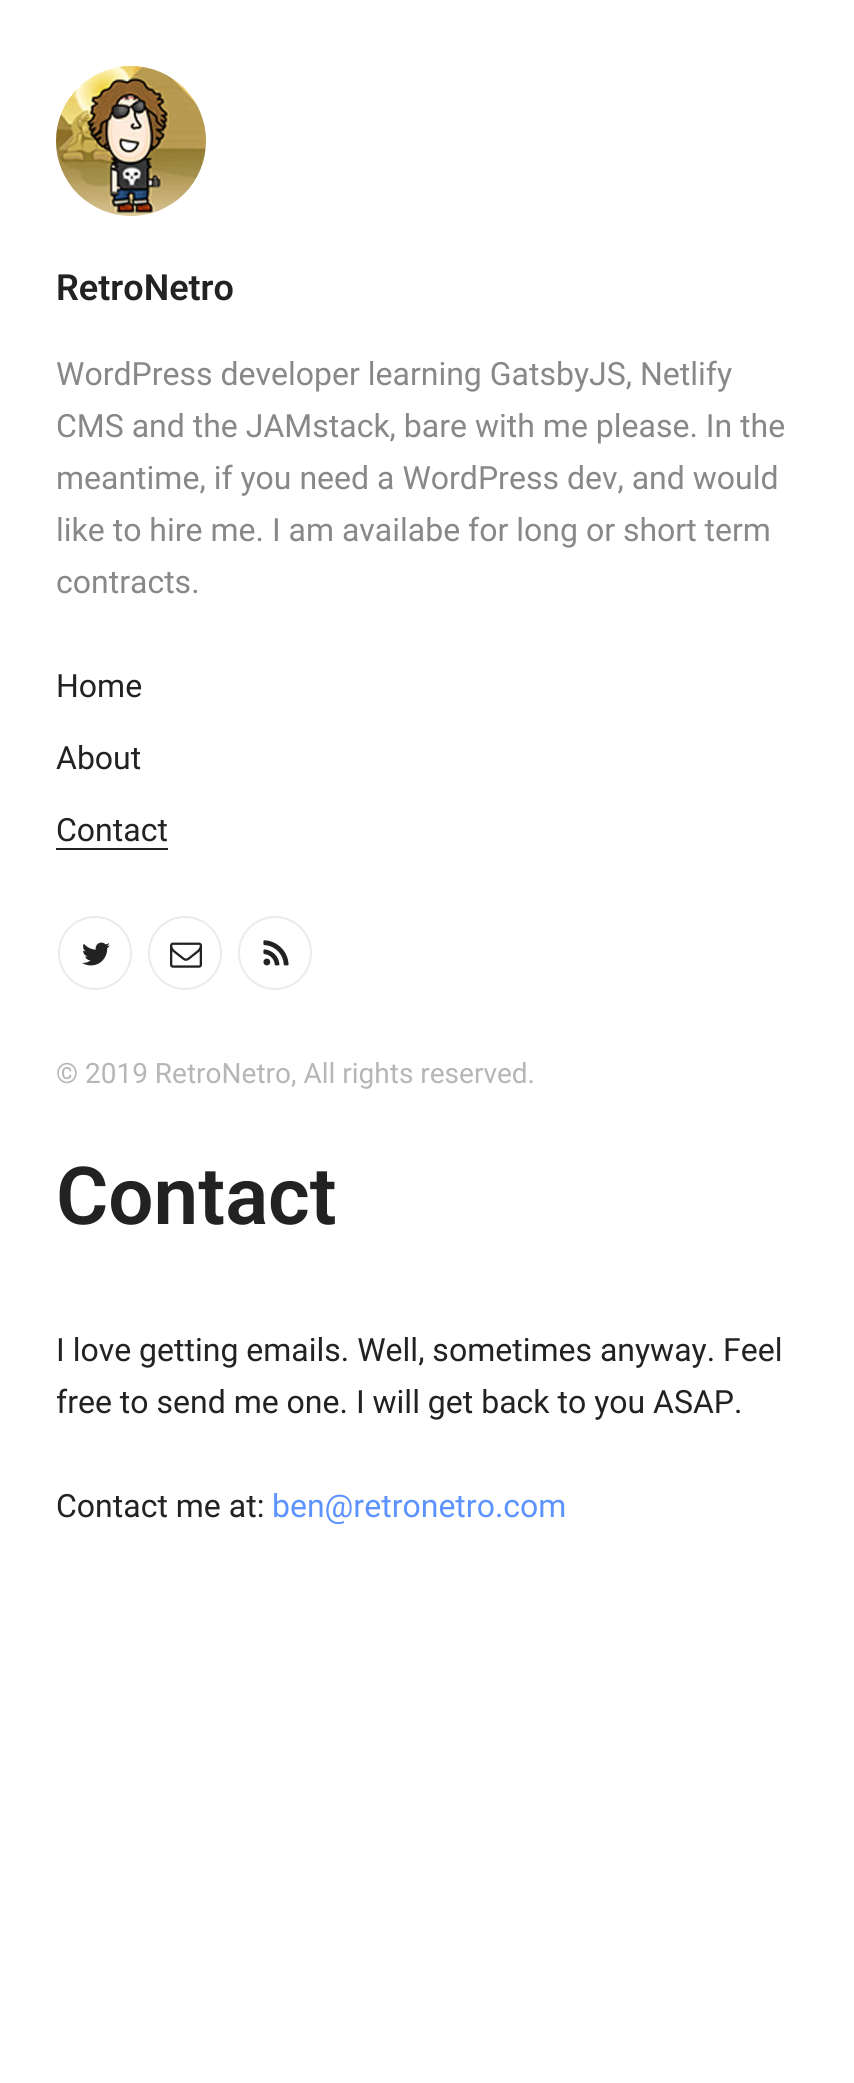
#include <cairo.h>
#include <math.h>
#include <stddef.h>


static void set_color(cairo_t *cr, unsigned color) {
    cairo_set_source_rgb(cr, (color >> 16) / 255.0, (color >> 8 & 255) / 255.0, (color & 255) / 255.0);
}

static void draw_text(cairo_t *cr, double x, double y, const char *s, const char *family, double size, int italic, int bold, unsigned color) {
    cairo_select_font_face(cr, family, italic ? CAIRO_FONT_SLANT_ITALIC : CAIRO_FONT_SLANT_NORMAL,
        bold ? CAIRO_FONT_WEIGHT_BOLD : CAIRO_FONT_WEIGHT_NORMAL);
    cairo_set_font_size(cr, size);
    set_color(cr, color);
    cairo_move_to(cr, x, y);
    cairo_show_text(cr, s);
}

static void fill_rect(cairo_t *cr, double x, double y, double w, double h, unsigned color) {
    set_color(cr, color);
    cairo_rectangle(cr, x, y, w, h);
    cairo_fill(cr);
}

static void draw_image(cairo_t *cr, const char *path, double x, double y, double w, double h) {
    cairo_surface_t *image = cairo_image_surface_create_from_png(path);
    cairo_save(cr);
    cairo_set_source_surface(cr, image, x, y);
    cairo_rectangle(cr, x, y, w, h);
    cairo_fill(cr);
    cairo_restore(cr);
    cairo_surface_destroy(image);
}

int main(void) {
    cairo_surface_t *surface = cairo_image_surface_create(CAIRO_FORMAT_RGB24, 854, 2083);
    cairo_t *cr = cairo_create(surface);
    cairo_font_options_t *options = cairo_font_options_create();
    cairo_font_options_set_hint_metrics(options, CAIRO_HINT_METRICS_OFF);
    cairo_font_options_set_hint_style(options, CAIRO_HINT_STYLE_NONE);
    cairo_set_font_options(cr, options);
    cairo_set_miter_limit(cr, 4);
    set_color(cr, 0xFFFFFF);
    cairo_paint(cr);
    draw_image(cr, "assets/img1.png", 56, 66, 150, 150);
    draw_text(cr, 56, 300, "RetroNetro", "Roboto SemiBold", 36, 0, 0, 0x222222);
    draw_text(cr, 56, 385, "WordPress developer learning GatsbyJS, Netlify", "Roboto", 32, 0, 0, 0x888888);
    draw_text(cr, 56, 437, "CMS and the JAMstack, bare with me please. In the", "Roboto", 32, 0, 0, 0x888888);
    draw_text(cr, 56, 489, "meantime, if you need a WordPress dev, and would", "Roboto", 32, 0, 0, 0x888888);
    draw_text(cr, 56, 541, "like to hire me. I am availabe for long or short term", "Roboto", 32, 0, 0, 0x888888);
    draw_text(cr, 56, 593, "contracts.", "Roboto", 32, 0, 0, 0x888888);
    draw_text(cr, 56, 697, "Home", "Roboto", 32, 0, 0, 0x222222);
    draw_text(cr, 56, 769, "About", "Roboto", 32, 0, 0, 0x222222);
    draw_text(cr, 56, 841, "Contact", "Roboto", 32, 0, 0, 0x222222);
    fill_rect(cr, 56, 848, 112, 2, 0x222222);
    cairo_new_path(cr);
    cairo_arc(cr, 95, 953, 36, 0, 2 * M_PI);
    set_color(cr, 0xEBEBEB);
    cairo_stroke(cr);
    draw_image(cr, "assets/img2.png", 82, 942, 28, 24);
    cairo_arc(cr, 185, 953, 36, 0, 2 * M_PI);
    cairo_stroke(cr);
    draw_image(cr, "assets/img3.png", 170, 942, 32, 26);
    cairo_arc(cr, 275, 953, 36, 0, 2 * M_PI);
    cairo_stroke(cr);
    draw_image(cr, "assets/img4.png", 263, 940, 26, 26);
    draw_text(cr, 56, 1083, "© 2019 RetroNetro, All rights reserved.", "Roboto", 28, 0, 0, 0xB6B6B6);
    draw_text(cr, 56, 1224, "Contact", "Roboto SemiBold", 80, 0, 0, 0x222222);
    draw_text(cr, 56, 1361, "I love getting emails. Well, sometimes anyway. Feel", "Roboto", 32, 0, 0, 0x222222);
    draw_text(cr, 56, 1413, "free to send me one. I will get back to you ASAP.", "Roboto", 32, 0, 0, 0x222222);
    draw_text(cr, 56, 1517, "Contact me at:", "Roboto", 32, 0, 0, 0x222222);
    draw_text(cr, 272, 1517, "ben@retronetro.com", "Roboto", 32, 0, 0, 0x5D93FF);
    cairo_surface_write_to_png(surface, "output.png");
    cairo_font_options_destroy(options);
    cairo_destroy(cr);
    cairo_surface_destroy(surface);
    return 0;
}
